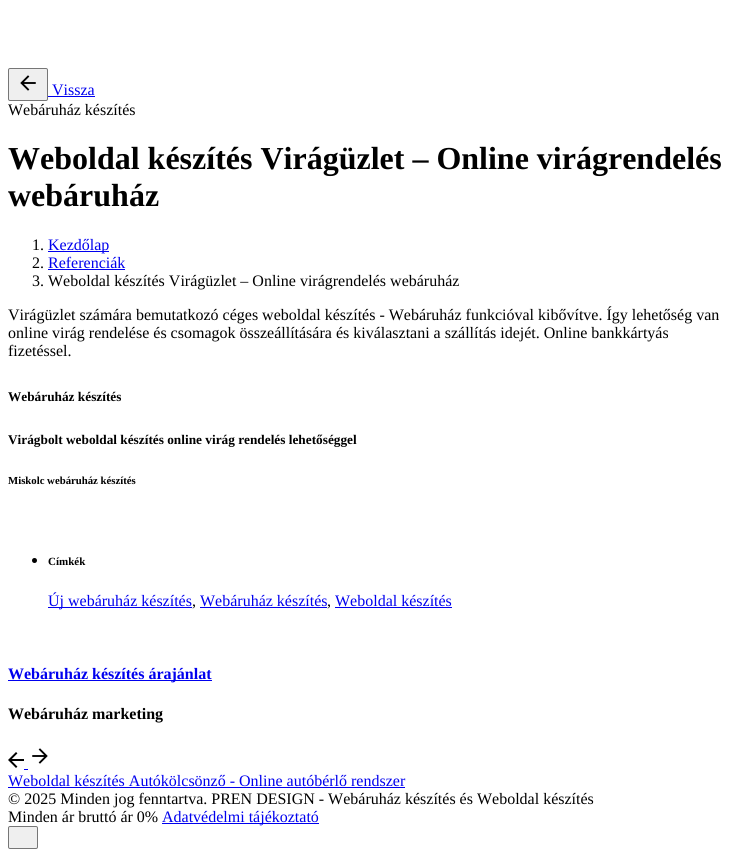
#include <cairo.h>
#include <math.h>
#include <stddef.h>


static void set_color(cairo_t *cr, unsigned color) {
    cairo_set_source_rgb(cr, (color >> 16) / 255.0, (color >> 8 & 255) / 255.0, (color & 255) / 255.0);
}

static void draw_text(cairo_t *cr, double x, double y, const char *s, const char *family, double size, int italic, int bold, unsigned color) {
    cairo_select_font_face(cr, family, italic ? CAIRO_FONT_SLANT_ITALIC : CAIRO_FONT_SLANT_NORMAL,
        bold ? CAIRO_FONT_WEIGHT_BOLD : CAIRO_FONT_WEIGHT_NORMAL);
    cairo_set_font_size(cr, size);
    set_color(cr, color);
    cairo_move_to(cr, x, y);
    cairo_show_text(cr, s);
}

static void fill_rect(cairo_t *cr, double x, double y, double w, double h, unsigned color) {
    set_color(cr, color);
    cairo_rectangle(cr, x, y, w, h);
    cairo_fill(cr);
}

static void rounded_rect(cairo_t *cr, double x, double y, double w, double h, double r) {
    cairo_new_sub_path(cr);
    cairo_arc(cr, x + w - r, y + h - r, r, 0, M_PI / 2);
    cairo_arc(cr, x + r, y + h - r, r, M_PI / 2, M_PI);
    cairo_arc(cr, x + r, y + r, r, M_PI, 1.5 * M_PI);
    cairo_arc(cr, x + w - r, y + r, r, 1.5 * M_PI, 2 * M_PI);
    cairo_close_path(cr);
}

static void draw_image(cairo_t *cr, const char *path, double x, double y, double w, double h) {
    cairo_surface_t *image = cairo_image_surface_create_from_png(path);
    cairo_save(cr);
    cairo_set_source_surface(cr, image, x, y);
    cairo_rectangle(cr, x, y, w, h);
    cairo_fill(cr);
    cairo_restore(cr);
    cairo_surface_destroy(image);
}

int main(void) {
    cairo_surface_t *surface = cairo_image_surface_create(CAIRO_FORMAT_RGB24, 735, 857);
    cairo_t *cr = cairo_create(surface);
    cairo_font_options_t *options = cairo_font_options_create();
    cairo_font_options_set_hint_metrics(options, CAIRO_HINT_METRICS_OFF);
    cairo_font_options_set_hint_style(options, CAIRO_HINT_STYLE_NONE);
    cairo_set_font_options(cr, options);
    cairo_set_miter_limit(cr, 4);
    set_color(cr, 0xFFFFFF);
    cairo_paint(cr);
    set_color(cr, 0xEFEFEF);
    rounded_rect(cr, 8.5, 68.5, 39, 32, 1.5);
    cairo_fill_preserve(cr);
    set_color(cr, 0x767676);
    cairo_set_line_width(cr, 1);
    cairo_stroke(cr);
    draw_image(cr, "assets/img1.png", 20, 75, 16, 16);
    draw_text(cr, 52, 95, "Vissza", "Liberation Serif", 16, 0, 0, 0x0000EE);
    fill_rect(cr, 48, 96, 47, 1, 0x0000EE);
    draw_text(cr, 8, 115, "Webáruház készítés", "Liberation Serif", 16, 0, 0, 0x000000);
    draw_text(cr, 8, 169, "Weboldal készítés Virágüzlet – Online virágrendelés", "Liberation Serif", 32, 0, 1, 0x000000);
    draw_text(cr, 8, 206, "webáruház", "Liberation Serif", 32, 0, 1, 0x000000);
    draw_text(cr, 32, 250, "1.", "Liberation Serif", 16, 0, 0, 0x000000);
    fill_rect(cr, 48, 251, 61, 1, 0x0000EE);
    draw_text(cr, 48, 250, "Kezdőlap", "Liberation Serif", 16, 0, 0, 0x0000EE);
    draw_text(cr, 32, 268, "2.", "Liberation Serif", 16, 0, 0, 0x000000);
    draw_text(cr, 48, 268, "Referenciák", "Liberation Serif", 16, 0, 0, 0x0000EE);
    fill_rect(cr, 48, 269, 77, 1, 0x0000EE);
    draw_text(cr, 32, 286, "3. Weboldal készítés Virágüzlet – Online virágrendelés webáruház", "Liberation Serif", 16, 0, 0, 0x000000);
    draw_text(cr, 8, 320, "Virágüzlet számára bemutatkozó céges weboldal készítés - Webáruház funkcióval kibővítve. Így lehetőség van", "Liberation Serif", 16, 0, 0, 0x000000);
    draw_text(cr, 8, 338, "online virág rendelése és csomagok összeállítására és kiválasztani a szállítás idejét. Online bankkártyás", "Liberation Serif", 16, 0, 0, 0x000000);
    draw_text(cr, 8, 356, "fizetéssel.", "Liberation Serif", 16, 0, 0, 0x000000);
    draw_text(cr, 8, 401, "Webáruház készítés", "Liberation Serif", 13.3, 0, 1, 0x000000);
    draw_text(cr, 8, 444, "Virágbolt weboldal készítés online virág rendelés lehetőséggel", "Liberation Serif", 13.3, 0, 1, 0x000000);
    draw_text(cr, 8, 484, "Miskolc webáruház készítés", "Liberation Serif", 10.75, 0, 1, 0x000000);
    cairo_new_path(cr);
    cairo_arc(cr, 34.5, 560.5, 2.5, 0, 2 * M_PI);
    cairo_fill(cr);
    draw_text(cr, 48, 565, "Címkék", "Liberation Serif", 11, 0, 1, 0x000000);
    fill_rect(cr, 48, 607, 144, 1, 0x0000EE);
    draw_text(cr, 48, 606, "Új webáruház készítés", "Liberation Serif", 16, 0, 0, 0x0000EE);
    draw_text(cr, 192, 606, ",", "Liberation Serif", 16, 0, 0, 0x000000);
    draw_text(cr, 200, 606, "Webáruház készítés", "Liberation Serif", 16, 0, 0, 0x0000EE);
    fill_rect(cr, 200, 607, 127, 1, 0x0000EE);
    draw_text(cr, 327, 606, ",", "Liberation Serif", 16, 0, 0, 0x000000);
    draw_text(cr, 335, 606, "Weboldal készítés", "Liberation Serif", 16, 0, 0, 0x0000EE);
    fill_rect(cr, 335, 607, 117, 1, 0x0000EE);
    fill_rect(cr, 8, 680, 204, 1, 0x0000EE);
    draw_text(cr, 8, 679, "Webáruház készítés árajánlat", "Liberation Serif", 16, 0, 1, 0x0000EE);
    draw_text(cr, 8, 719, "Webáruház marketing", "Liberation Serif", 16, 0, 1, 0x000000);
    draw_image(cr, "assets/img2.png", 8, 752, 16, 16);
    draw_image(cr, "assets/img3.png", 32, 748, 16, 16);
    fill_rect(cr, 24, 769, 4, 1, 0x0000EE);
    draw_text(cr, 8, 786, "Weboldal készítés Autókölcsönző - Online autóbérlő rendszer", "Liberation Serif", 16, 0, 0, 0x0000EE);
    fill_rect(cr, 8, 787, 397, 1, 0x0000EE);
    draw_text(cr, 8, 804, "© 2025 Minden jog fenntartva. PREN DESIGN - Webáruház készítés és Weboldal készítés", "Liberation Serif", 16, 0, 0, 0x000000);
    draw_text(cr, 8, 822, "Minden ár bruttó ár 0%", "Liberation Serif", 16, 0, 0, 0x000000);
    fill_rect(cr, 162, 823, 157, 1, 0x0000EE);
    draw_text(cr, 162, 822, "Adatvédelmi tájékoztató", "Liberation Serif", 16, 0, 0, 0x0000EE);
    set_color(cr, 0xEFEFEF);
    rounded_rect(cr, 8.5, 826.5, 29, 22, 1.5);
    cairo_fill_preserve(cr);
    set_color(cr, 0x767676);
    cairo_stroke(cr);
    cairo_surface_write_to_png(surface, "output.png");
    cairo_font_options_destroy(options);
    cairo_destroy(cr);
    cairo_surface_destroy(surface);
    return 0;
}
